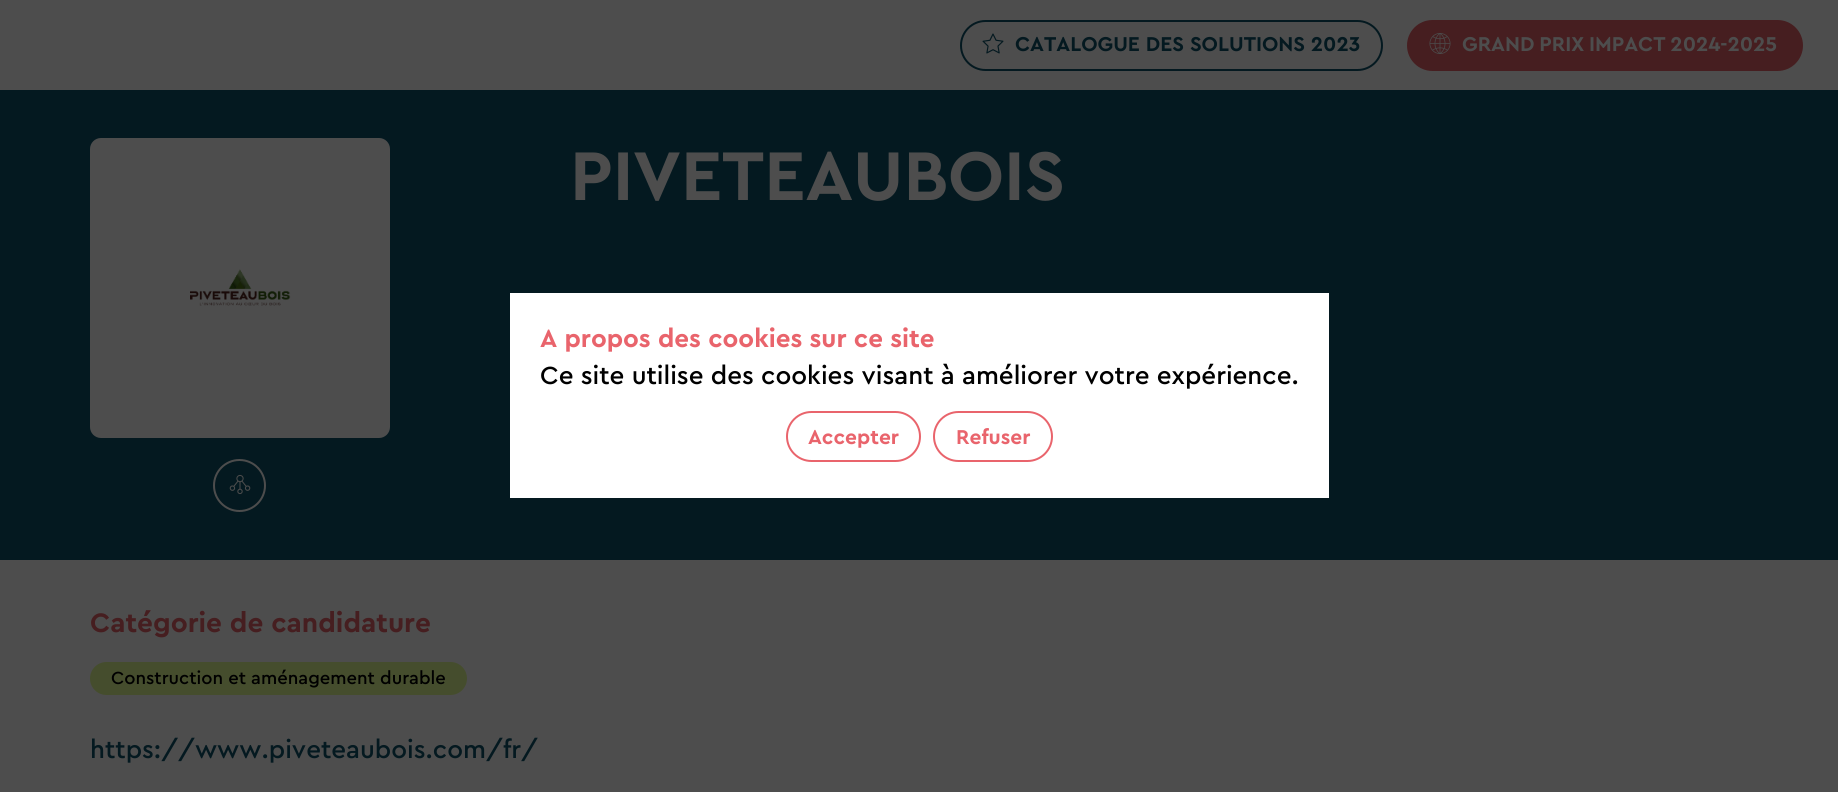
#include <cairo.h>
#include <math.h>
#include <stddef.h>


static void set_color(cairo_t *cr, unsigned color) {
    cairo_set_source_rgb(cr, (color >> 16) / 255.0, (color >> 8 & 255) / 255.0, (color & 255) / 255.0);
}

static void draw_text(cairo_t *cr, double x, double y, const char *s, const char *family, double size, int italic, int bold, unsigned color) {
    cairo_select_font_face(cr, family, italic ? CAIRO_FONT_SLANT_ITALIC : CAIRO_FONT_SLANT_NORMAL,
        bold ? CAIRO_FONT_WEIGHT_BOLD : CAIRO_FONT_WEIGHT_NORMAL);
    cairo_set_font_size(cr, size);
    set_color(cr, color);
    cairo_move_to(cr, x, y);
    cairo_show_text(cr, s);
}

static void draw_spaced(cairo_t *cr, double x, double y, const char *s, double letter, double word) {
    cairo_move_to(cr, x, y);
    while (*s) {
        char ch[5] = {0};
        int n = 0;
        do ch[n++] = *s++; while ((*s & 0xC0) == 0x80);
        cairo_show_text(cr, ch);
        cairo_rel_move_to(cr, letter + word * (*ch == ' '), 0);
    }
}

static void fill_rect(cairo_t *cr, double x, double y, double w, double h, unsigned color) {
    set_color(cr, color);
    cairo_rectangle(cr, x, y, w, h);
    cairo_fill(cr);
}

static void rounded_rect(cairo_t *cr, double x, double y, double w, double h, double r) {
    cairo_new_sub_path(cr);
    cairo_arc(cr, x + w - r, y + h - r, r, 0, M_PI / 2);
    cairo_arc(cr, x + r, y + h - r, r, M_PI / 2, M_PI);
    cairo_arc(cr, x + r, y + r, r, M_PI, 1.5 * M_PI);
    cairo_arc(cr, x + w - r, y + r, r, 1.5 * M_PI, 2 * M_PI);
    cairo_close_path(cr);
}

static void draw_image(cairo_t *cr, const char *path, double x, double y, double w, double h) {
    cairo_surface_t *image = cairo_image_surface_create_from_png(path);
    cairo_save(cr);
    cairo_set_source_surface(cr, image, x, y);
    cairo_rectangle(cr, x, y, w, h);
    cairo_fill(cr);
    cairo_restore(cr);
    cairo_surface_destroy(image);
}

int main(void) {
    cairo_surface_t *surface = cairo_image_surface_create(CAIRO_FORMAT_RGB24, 1838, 792);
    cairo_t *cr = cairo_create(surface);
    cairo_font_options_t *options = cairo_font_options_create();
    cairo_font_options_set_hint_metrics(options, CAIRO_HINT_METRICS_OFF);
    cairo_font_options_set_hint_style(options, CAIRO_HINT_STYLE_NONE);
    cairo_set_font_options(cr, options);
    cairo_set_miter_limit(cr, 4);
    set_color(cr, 0x041920);
    cairo_paint(cr);
    fill_rect(cr, 0, 0, 1838, 90, 0x4D4D4D);
    rounded_rect(cr, 961, 21, 421, 49, 24.5);
    set_color(cr, 0x041920);
    cairo_stroke(cr);
    draw_image(cr, "assets/img1.png", 982, 33, 22, 21);
    draw_text(cr, 1015, 51, "CATALOGUE DES SOLUTIONS 2023", "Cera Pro", 21, 0, 1, 0x041920);
    set_color(cr, 0x461E20);
    rounded_rect(cr, 1407, 20, 396, 51, 25.5);
    cairo_fill(cr);
    draw_image(cr, "assets/img2.png", 1429, 33, 22, 21);
    set_color(cr, 0x4D4D4D);
    draw_spaced(cr, 1462, 51, "GRAND PRIX IMPACT 2024-2025", 0, -1);
    rounded_rect(cr, 91, 139, 298, 298, 10);
    cairo_fill_preserve(cr);
    cairo_stroke(cr);
    draw_image(cr, "assets/img3.png", 190, 269, 101, 37);
    cairo_arc(cr, 239.5, 485.5, 25.5, 0, 2 * M_PI);
    cairo_stroke(cr);
    draw_image(cr, "assets/img4.png", 229, 474, 22, 21);
    draw_text(cr, 570, 200, "PIVETEAUBOIS", "Cera Pro", 72, 0, 1, 0x4D4D4D);
    fill_rect(cr, 0, 560, 1838, 232, 0x4D4D4D);
    draw_text(cr, 90, 632, "Catégorie de candidature", "Cera Pro", 28, 0, 1, 0x461E20);
    set_color(cr, 0x454D2D);
    rounded_rect(cr, 90, 662, 377, 33, 16.5);
    cairo_fill(cr);
    draw_text(cr, 111, 684, "Construction et aménagement durable", "Cera Pro Medium", 18.4, 0, 0, 0x000000);
    draw_text(cr, 90, 758, "https://www.piveteaubois.com/fr/", "Cera Pro Medium", 26, 0, 0, 0x041920);
    fill_rect(cr, 510, 293, 819, 205, 0xFFFFFF);
    draw_text(cr, 540, 347, "A propos des cookies sur ce site", "Cera Pro", 26, 0, 1, 0xE9646C);
    draw_text(cr, 540, 384, "Ce site utilise des cookies visant à améliorer votre expérience.", "Cera Pro Medium", 26, 0, 0, 0x000000);
    rounded_rect(cr, 787, 412, 133, 49, 24.5);
    set_color(cr, 0xE9646C);
    cairo_stroke(cr);
    draw_text(cr, 808, 444, "Accepter", "Cera Pro", 21, 0, 1, 0xE9646C);
    rounded_rect(cr, 934, 412, 118, 49, 24.5);
    cairo_stroke(cr);
    draw_text(cr, 956, 444, "Refuser", "Cera Pro", 21, 0, 1, 0xE9646C);
    cairo_surface_write_to_png(surface, "output.png");
    cairo_font_options_destroy(options);
    cairo_destroy(cr);
    cairo_surface_destroy(surface);
    return 0;
}
